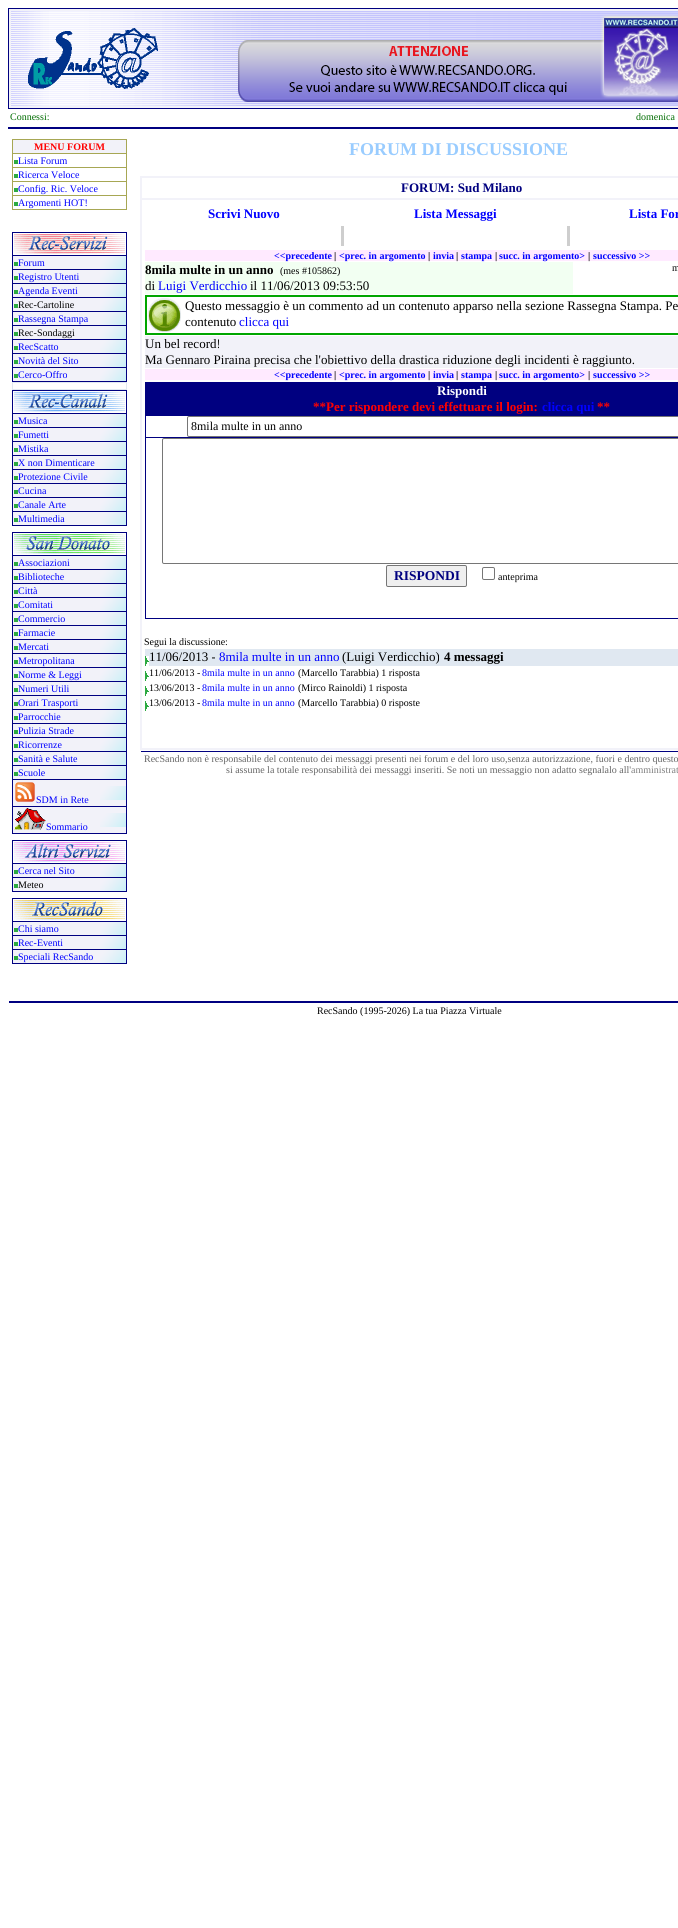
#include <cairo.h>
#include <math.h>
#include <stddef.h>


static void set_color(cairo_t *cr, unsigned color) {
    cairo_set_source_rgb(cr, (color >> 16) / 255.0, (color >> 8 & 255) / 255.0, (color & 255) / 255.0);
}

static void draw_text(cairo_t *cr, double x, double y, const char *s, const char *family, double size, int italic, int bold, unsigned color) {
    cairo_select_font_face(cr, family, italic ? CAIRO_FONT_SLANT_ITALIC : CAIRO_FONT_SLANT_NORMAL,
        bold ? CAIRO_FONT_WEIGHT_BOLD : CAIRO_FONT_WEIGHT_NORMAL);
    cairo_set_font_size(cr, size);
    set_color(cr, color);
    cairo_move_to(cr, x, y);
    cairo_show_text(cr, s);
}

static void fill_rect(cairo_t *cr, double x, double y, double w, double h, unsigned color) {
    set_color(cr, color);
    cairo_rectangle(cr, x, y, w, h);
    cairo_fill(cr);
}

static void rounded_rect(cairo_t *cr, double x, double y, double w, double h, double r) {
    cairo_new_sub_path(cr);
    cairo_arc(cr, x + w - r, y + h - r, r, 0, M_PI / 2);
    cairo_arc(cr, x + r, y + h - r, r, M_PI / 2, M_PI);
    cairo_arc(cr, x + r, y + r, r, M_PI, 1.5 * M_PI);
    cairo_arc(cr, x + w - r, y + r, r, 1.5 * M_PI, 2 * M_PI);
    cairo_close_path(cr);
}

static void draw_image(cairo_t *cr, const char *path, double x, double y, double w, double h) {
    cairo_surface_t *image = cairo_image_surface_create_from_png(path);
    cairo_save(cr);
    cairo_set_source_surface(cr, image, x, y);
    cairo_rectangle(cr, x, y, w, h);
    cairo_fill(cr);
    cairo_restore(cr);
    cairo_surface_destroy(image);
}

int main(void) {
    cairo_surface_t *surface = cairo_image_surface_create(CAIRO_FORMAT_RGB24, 678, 1928);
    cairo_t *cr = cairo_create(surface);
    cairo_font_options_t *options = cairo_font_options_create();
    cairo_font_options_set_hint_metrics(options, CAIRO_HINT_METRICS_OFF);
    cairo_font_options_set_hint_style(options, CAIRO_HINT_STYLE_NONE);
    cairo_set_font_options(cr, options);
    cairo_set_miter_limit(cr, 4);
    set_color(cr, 0xFFFFFF);
    cairo_paint(cr);
    fill_rect(cr, 8, 8, 670, 101, 0x000080);
    fill_rect(cr, 9, 9, 669, 99, 0xF2F2F9);
    draw_image(cr, "assets/img1.png", 11, 11, 667, 95);
    draw_image(cr, "assets/img2.png", 28, 28, 130, 61);
    draw_image(cr, "assets/img3.png", 238, 15, 440, 87);
    draw_text(cr, 10, 120, "Connessi:", "Liberation Serif", 10, 0, 0, 0x006C00);
    draw_text(cr, 636, 120, "domenica", "Liberation Serif", 10, 0, 0, 0x006C00);
    fill_rect(cr, 8, 127, 670, 2, 0x000080);
    fill_rect(cr, 12, 139, 115, 71, 0xA7A754);
    fill_rect(cr, 13, 140, 113, 13, 0xF2F2F9);
    draw_text(cr, 34, 150, "MENU FORUM", "Liberation Serif", 10, 0, 1, 0xFF0000);
    fill_rect(cr, 13, 154, 113, 13, 0xFFFFFF);
    draw_text(cr, 18, 164, "Lista Forum", "Liberation Serif", 10, 0, 0, 0x0000FF);
    fill_rect(cr, 14, 160, 4, 4, 0x2DAA42);
    fill_rect(cr, 13, 168, 113, 13, 0xFFFFFF);
    draw_text(cr, 18, 178, "Ricerca Veloce", "Liberation Serif", 10, 0, 0, 0x0000FF);
    fill_rect(cr, 14, 174, 4, 4, 0x2DAA42);
    fill_rect(cr, 13, 182, 113, 13, 0xFFFFFF);
    draw_text(cr, 18, 192, "Config. Ric. Veloce", "Liberation Serif", 10, 0, 0, 0x0000FF);
    fill_rect(cr, 14, 188, 4, 4, 0x2DAA42);
    fill_rect(cr, 13, 196, 113, 13, 0xFFFFFF);
    draw_text(cr, 18, 206, "Argomenti HOT!", "Liberation Serif", 10, 0, 0, 0x0000FF);
    fill_rect(cr, 14, 202, 4, 4, 0x2DAA42);
    fill_rect(cr, 12, 232, 115, 150, 0x000080);
    fill_rect(cr, 13, 233, 113, 22, 0xFFFFFF);
    draw_image(cr, "assets/img4.png", 14, 234, 111, 20);
    fill_rect(cr, 13, 256, 87, 13, 0xF2F2F9);
    draw_image(cr, "assets/img5.png", 100, 256, 26, 13);
    draw_text(cr, 18, 266, "Forum", "Liberation Serif", 10, 0, 0, 0x0000FF);
    fill_rect(cr, 14, 262, 4, 4, 0x2DAA42);
    fill_rect(cr, 13, 270, 87, 13, 0xF2F2F9);
    draw_image(cr, "assets/img5.png", 100, 270, 26, 13);
    draw_text(cr, 18, 280, "Registro Utenti", "Liberation Serif", 10, 0, 0, 0x0000FF);
    fill_rect(cr, 14, 276, 4, 4, 0x2DAA42);
    fill_rect(cr, 13, 284, 87, 13, 0xF2F2F9);
    draw_image(cr, "assets/img5.png", 100, 284, 26, 13);
    draw_text(cr, 18, 294, "Agenda Eventi", "Liberation Serif", 10, 0, 0, 0x0000FF);
    fill_rect(cr, 14, 290, 4, 4, 0x2DAA42);
    fill_rect(cr, 13, 298, 87, 13, 0xF2F2F9);
    draw_image(cr, "assets/img5.png", 100, 298, 26, 13);
    draw_text(cr, 18, 308, "Rec-Cartoline", "Liberation Serif", 10, 0, 0, 0x000000);
    fill_rect(cr, 14, 304, 4, 4, 0x2DAA42);
    fill_rect(cr, 13, 312, 87, 13, 0xF2F2F9);
    draw_image(cr, "assets/img5.png", 100, 312, 26, 13);
    draw_text(cr, 18, 322, "Rassegna Stampa", "Liberation Serif", 10, 0, 0, 0x0000FF);
    fill_rect(cr, 14, 318, 4, 4, 0x2DAA42);
    fill_rect(cr, 13, 326, 87, 13, 0xF2F2F9);
    draw_image(cr, "assets/img5.png", 100, 326, 26, 13);
    draw_text(cr, 18, 336, "Rec-Sondaggi", "Liberation Serif", 10, 0, 0, 0x000000);
    fill_rect(cr, 14, 332, 4, 4, 0x2DAA42);
    fill_rect(cr, 13, 340, 87, 13, 0xF2F2F9);
    draw_image(cr, "assets/img5.png", 100, 340, 26, 13);
    draw_text(cr, 18, 350, "RecScatto", "Liberation Serif", 10, 0, 0, 0x0000FF);
    fill_rect(cr, 14, 346, 4, 4, 0x2DAA42);
    fill_rect(cr, 13, 354, 87, 13, 0xF2F2F9);
    draw_image(cr, "assets/img5.png", 100, 354, 26, 13);
    draw_text(cr, 18, 364, "Novità del Sito", "Liberation Serif", 10, 0, 0, 0x0000FF);
    fill_rect(cr, 14, 360, 4, 4, 0x2DAA42);
    fill_rect(cr, 13, 368, 87, 13, 0xF2F2F9);
    draw_image(cr, "assets/img5.png", 100, 368, 26, 13);
    draw_text(cr, 18, 378, "Cerco-Offro", "Liberation Serif", 10, 0, 0, 0x0000FF);
    fill_rect(cr, 14, 374, 4, 4, 0x2DAA42);
    fill_rect(cr, 12, 382, 115, 8, 0xE0E8F1);
    fill_rect(cr, 13, 383, 113, 6, 0xFFFFFF);
    fill_rect(cr, 12, 390, 115, 136, 0x000080);
    fill_rect(cr, 13, 391, 113, 22, 0xFFFFFF);
    draw_image(cr, "assets/img6.png", 14, 392, 111, 20);
    fill_rect(cr, 13, 414, 87, 13, 0xF2F2F9);
    draw_image(cr, "assets/img5.png", 100, 414, 26, 13);
    draw_text(cr, 18, 424, "Musica", "Liberation Serif", 10, 0, 0, 0x0000FF);
    fill_rect(cr, 14, 420, 4, 4, 0x2DAA42);
    fill_rect(cr, 13, 428, 87, 13, 0xF2F2F9);
    draw_image(cr, "assets/img5.png", 100, 428, 26, 13);
    fill_rect(cr, 14, 434, 4, 4, 0x2DAA42);
    draw_text(cr, 18, 438, "Fumetti", "Liberation Serif", 10, 0, 0, 0x0000FF);
    fill_rect(cr, 13, 442, 87, 13, 0xF2F2F9);
    draw_image(cr, "assets/img5.png", 100, 442, 26, 13);
    draw_text(cr, 18, 452, "Mistika", "Liberation Serif", 10, 0, 0, 0x0000FF);
    fill_rect(cr, 14, 448, 4, 4, 0x2DAA42);
    fill_rect(cr, 13, 456, 87, 13, 0xF2F2F9);
    draw_image(cr, "assets/img5.png", 100, 456, 26, 13);
    draw_text(cr, 18, 466, "X non Dimenticare", "Liberation Serif", 10, 0, 0, 0x0000FF);
    fill_rect(cr, 14, 462, 4, 4, 0x2DAA42);
    fill_rect(cr, 13, 470, 87, 13, 0xF2F2F9);
    draw_image(cr, "assets/img5.png", 100, 470, 26, 13);
    draw_text(cr, 18, 480, "Protezione Civile", "Liberation Serif", 10, 0, 0, 0x0000FF);
    fill_rect(cr, 14, 476, 4, 4, 0x2DAA42);
    fill_rect(cr, 13, 484, 87, 13, 0xF2F2F9);
    draw_image(cr, "assets/img5.png", 100, 484, 26, 13);
    draw_text(cr, 18, 494, "Cucina", "Liberation Serif", 10, 0, 0, 0x0000FF);
    fill_rect(cr, 14, 490, 4, 4, 0x2DAA42);
    fill_rect(cr, 13, 498, 87, 13, 0xF2F2F9);
    draw_image(cr, "assets/img5.png", 100, 498, 26, 13);
    draw_text(cr, 18, 508, "Canale Arte", "Liberation Serif", 10, 0, 0, 0x0000FF);
    fill_rect(cr, 14, 504, 4, 4, 0x2DAA42);
    fill_rect(cr, 13, 512, 87, 13, 0xF2F2F9);
    draw_image(cr, "assets/img5.png", 100, 512, 26, 13);
    draw_text(cr, 18, 522, "Multimedia", "Liberation Serif", 10, 0, 0, 0x0000FF);
    fill_rect(cr, 14, 518, 4, 4, 0x2DAA42);
    fill_rect(cr, 12, 532, 115, 302, 0x000080);
    fill_rect(cr, 13, 533, 113, 22, 0xFFFFFF);
    draw_image(cr, "assets/img7.png", 14, 534, 111, 20);
    fill_rect(cr, 13, 556, 87, 13, 0xF2F2F9);
    draw_image(cr, "assets/img5.png", 100, 556, 26, 13);
    draw_text(cr, 18, 566, "Associazioni", "Liberation Serif", 10, 0, 0, 0x0000FF);
    fill_rect(cr, 14, 562, 4, 4, 0x2DAA42);
    fill_rect(cr, 13, 570, 87, 13, 0xF2F2F9);
    draw_image(cr, "assets/img5.png", 100, 570, 26, 13);
    draw_text(cr, 18, 580, "Biblioteche", "Liberation Serif", 10, 0, 0, 0x0000FF);
    fill_rect(cr, 14, 576, 4, 4, 0x2DAA42);
    fill_rect(cr, 13, 584, 87, 13, 0xF2F2F9);
    draw_image(cr, "assets/img5.png", 100, 584, 26, 13);
    draw_text(cr, 18, 594, "Città", "Liberation Serif", 10, 0, 0, 0x0000FF);
    fill_rect(cr, 14, 590, 4, 4, 0x2DAA42);
    fill_rect(cr, 13, 598, 87, 13, 0xF2F2F9);
    draw_image(cr, "assets/img5.png", 100, 598, 26, 13);
    draw_text(cr, 18, 608, "Comitati", "Liberation Serif", 10, 0, 0, 0x0000FF);
    fill_rect(cr, 14, 604, 4, 4, 0x2DAA42);
    fill_rect(cr, 13, 612, 87, 13, 0xF2F2F9);
    draw_image(cr, "assets/img5.png", 100, 612, 26, 13);
    draw_text(cr, 18, 622, "Commercio", "Liberation Serif", 10, 0, 0, 0x0000FF);
    fill_rect(cr, 14, 618, 4, 4, 0x2DAA42);
    fill_rect(cr, 13, 626, 87, 13, 0xF2F2F9);
    draw_image(cr, "assets/img5.png", 100, 626, 26, 13);
    draw_text(cr, 18, 636, "Farmacie", "Liberation Serif", 10, 0, 0, 0x0000FF);
    fill_rect(cr, 14, 632, 4, 4, 0x2DAA42);
    fill_rect(cr, 13, 640, 87, 13, 0xF2F2F9);
    draw_image(cr, "assets/img5.png", 100, 640, 26, 13);
    draw_text(cr, 18, 650, "Mercati", "Liberation Serif", 10, 0, 0, 0x0000FF);
    fill_rect(cr, 14, 646, 4, 4, 0x2DAA42);
    fill_rect(cr, 13, 654, 87, 13, 0xF2F2F9);
    draw_image(cr, "assets/img5.png", 100, 654, 26, 13);
    draw_text(cr, 18, 664, "Metropolitana", "Liberation Serif", 10, 0, 0, 0x0000FF);
    fill_rect(cr, 14, 660, 4, 4, 0x2DAA42);
    fill_rect(cr, 13, 668, 87, 13, 0xF2F2F9);
    draw_image(cr, "assets/img5.png", 100, 668, 26, 13);
    draw_text(cr, 18, 678, "Norme & Leggi", "Liberation Serif", 10, 0, 0, 0x0000FF);
    fill_rect(cr, 14, 674, 4, 4, 0x2DAA42);
    fill_rect(cr, 13, 682, 87, 13, 0xF2F2F9);
    draw_image(cr, "assets/img5.png", 100, 682, 26, 13);
    draw_text(cr, 18, 692, "Numeri Utili", "Liberation Serif", 10, 0, 0, 0x0000FF);
    fill_rect(cr, 14, 688, 4, 4, 0x2DAA42);
    fill_rect(cr, 13, 696, 87, 13, 0xF2F2F9);
    draw_image(cr, "assets/img5.png", 100, 696, 26, 13);
    draw_text(cr, 18, 706, "Orari Trasporti", "Liberation Serif", 10, 0, 0, 0x0000FF);
    fill_rect(cr, 14, 702, 4, 4, 0x2DAA42);
    fill_rect(cr, 13, 710, 87, 13, 0xF2F2F9);
    draw_image(cr, "assets/img5.png", 100, 710, 26, 13);
    draw_text(cr, 18, 720, "Parrocchie", "Liberation Serif", 10, 0, 0, 0x0000FF);
    fill_rect(cr, 14, 716, 4, 4, 0x2DAA42);
    fill_rect(cr, 13, 724, 87, 13, 0xF2F2F9);
    draw_image(cr, "assets/img5.png", 100, 724, 26, 13);
    draw_text(cr, 18, 734, "Pulizia Strade", "Liberation Serif", 10, 0, 0, 0x0000FF);
    fill_rect(cr, 14, 730, 4, 4, 0x2DAA42);
    fill_rect(cr, 13, 738, 87, 13, 0xF2F2F9);
    draw_image(cr, "assets/img5.png", 100, 738, 26, 13);
    draw_text(cr, 18, 748, "Ricorrenze", "Liberation Serif", 10, 0, 0, 0x0000FF);
    fill_rect(cr, 14, 744, 4, 4, 0x2DAA42);
    fill_rect(cr, 13, 752, 87, 13, 0xF2F2F9);
    draw_image(cr, "assets/img5.png", 100, 752, 26, 13);
    draw_text(cr, 18, 762, "Sanità e Salute", "Liberation Serif", 10, 0, 0, 0x0000FF);
    fill_rect(cr, 14, 758, 4, 4, 0x2DAA42);
    fill_rect(cr, 13, 766, 87, 13, 0xF2F2F9);
    draw_image(cr, "assets/img5.png", 100, 766, 26, 13);
    draw_text(cr, 18, 776, "Scuole", "Liberation Serif", 10, 0, 0, 0x0000FF);
    fill_rect(cr, 14, 772, 4, 4, 0x2DAA42);
    fill_rect(cr, 13, 780, 113, 26, 0xF2F2F9);
    draw_image(cr, "assets/img8.png", 100, 786, 26, 14);
    draw_image(cr, "assets/img9.png", 15, 782, 20, 20);
    draw_text(cr, 36, 803, "SDM in Rete", "Liberation Serif", 10, 0, 0, 0x0000FF);
    fill_rect(cr, 13, 807, 113, 26, 0xF2F2F9);
    draw_image(cr, "assets/img8.png", 100, 813, 26, 14);
    draw_image(cr, "assets/img10.png", 14, 808, 32, 22);
    draw_text(cr, 46, 830, "Sommario", "Liberation Serif", 10, 0, 0, 0x0000FF);
    fill_rect(cr, 12, 840, 115, 52, 0x000080);
    fill_rect(cr, 13, 841, 113, 22, 0xFFFFFF);
    draw_image(cr, "assets/img11.png", 14, 842, 111, 20);
    fill_rect(cr, 13, 864, 87, 13, 0xF2F2F9);
    draw_image(cr, "assets/img5.png", 100, 864, 26, 13);
    draw_text(cr, 18, 874, "Cerca nel Sito", "Liberation Serif", 10, 0, 0, 0x0000FF);
    fill_rect(cr, 14, 870, 4, 4, 0x2DAA42);
    fill_rect(cr, 13, 878, 87, 13, 0xF2F2F9);
    draw_image(cr, "assets/img5.png", 100, 878, 26, 13);
    draw_text(cr, 18, 888, "Meteo", "Liberation Serif", 10, 0, 0, 0x000000);
    fill_rect(cr, 14, 884, 4, 4, 0x2DAA42);
    fill_rect(cr, 12, 898, 115, 66, 0x000080);
    fill_rect(cr, 13, 899, 113, 22, 0xFFFFFF);
    draw_image(cr, "assets/img12.png", 14, 900, 111, 20);
    fill_rect(cr, 13, 922, 87, 13, 0xF2F2F9);
    draw_image(cr, "assets/img5.png", 100, 922, 26, 13);
    draw_text(cr, 18, 932, "Chi siamo", "Liberation Serif", 10, 0, 0, 0x0000FF);
    fill_rect(cr, 14, 928, 4, 4, 0x2DAA42);
    fill_rect(cr, 13, 936, 87, 13, 0xF2F2F9);
    draw_image(cr, "assets/img5.png", 100, 936, 26, 13);
    draw_text(cr, 18, 946, "Rec-Eventi", "Liberation Serif", 10, 0, 0, 0x0000FF);
    fill_rect(cr, 14, 942, 4, 4, 0x2DAA42);
    fill_rect(cr, 13, 950, 87, 13, 0xF2F2F9);
    draw_image(cr, "assets/img5.png", 100, 950, 26, 13);
    draw_text(cr, 18, 960, "Speciali RecSando", "Liberation Serif", 10, 0, 0, 0x0000FF);
    fill_rect(cr, 14, 956, 4, 4, 0x2DAA42);
    draw_text(cr, 349, 155, "FORUM DI DISCUSSIONE", "Liberation Serif", 18, 0, 1, 0x99CCFF);
    fill_rect(cr, 140, 176, 538, 574, 0xF2F2F9);
    fill_rect(cr, 142, 178, 536, 20, 0xFFFFFF);
    draw_text(cr, 401, 192, "FORUM: Sud Milano", "Liberation Serif", 13, 0, 1, 0x000080);
    fill_rect(cr, 142, 200, 536, 548, 0xFFFFFF);
    draw_text(cr, 208, 218, "Scrivi Nuovo", "Liberation Serif", 13, 0, 1, 0x0000FF);
    draw_text(cr, 414, 218, "Lista Messaggi", "Liberation Serif", 13, 0, 1, 0x0000FF);
    draw_text(cr, 629, 218, "Lista For", "Liberation Serif", 13, 0, 1, 0x0000FF);
    fill_rect(cr, 341, 226, 229, 20, 0xCECECE);
    fill_rect(cr, 344, 226, 223, 20, 0xFFFFFF);
    fill_rect(cr, 145, 250, 533, 11, 0xFFEAFF);
    draw_text(cr, 274, 259, "<<precedente", "Liberation Serif", 10, 0, 1, 0x0000FF);
    draw_text(cr, 334, 259, "|", "Liberation Serif", 10, 0, 1, 0x000000);
    draw_text(cr, 339, 259, "<prec. in argomento", "Liberation Serif", 10, 0, 1, 0x0000FF);
    draw_text(cr, 428, 259, "|", "Liberation Serif", 10, 0, 1, 0x000000);
    draw_text(cr, 433, 259, "invia", "Liberation Serif", 10, 0, 1, 0x0000FF);
    draw_text(cr, 456, 259, "|", "Liberation Serif", 10, 0, 1, 0x000000);
    draw_text(cr, 461, 259, "stampa", "Liberation Serif", 10, 0, 1, 0x0000FF);
    draw_text(cr, 495, 259, "|", "Liberation Serif", 10, 0, 1, 0x000000);
    draw_text(cr, 499, 259, "succ. in argomento>", "Liberation Serif", 10, 0, 1, 0x0000FF);
    draw_text(cr, 588, 259, "|", "Liberation Serif", 10, 0, 1, 0x000000);
    draw_text(cr, 593, 259, "successivo >>", "Liberation Serif", 10, 0, 1, 0x0000FF);
    fill_rect(cr, 145, 262, 428, 32, 0xF2FFF2);
    draw_text(cr, 145, 274, "8mila multe in un anno", "Liberation Serif", 13, 0, 1, 0x000000);
    draw_text(cr, 280, 274, "(mes #105862)", "Liberation Serif", 10, 0, 0, 0x000000);
    draw_text(cr, 145, 290, "di", "Liberation Serif", 13, 0, 0, 0x000000);
    draw_text(cr, 158, 290, "Luigi Verdicchio", "Liberation Serif", 13, 0, 0, 0x0000FF);
    draw_text(cr, 250, 290, "il 11/06/2013 09:53:50", "Liberation Serif", 13, 0, 0, 0x000000);
    draw_text(cr, 672, 271, "m", "Liberation Serif", 10, 0, 0, 0x000000);
    fill_rect(cr, 145, 295, 533, 40, 0x00A600);
    fill_rect(cr, 147, 297, 531, 36, 0xFFFFFF);
    draw_image(cr, "assets/img13.png", 148, 298, 33, 34);
    draw_text(cr, 185, 310, "Questo messaggio è un commento ad un contenuto apparso nella sezione Rassegna Stampa. Pe", "Liberation Serif", 13, 0, 0, 0x000000);
    draw_text(cr, 185, 326, "contenuto", "Liberation Serif", 13, 0, 0, 0x000000);
    draw_text(cr, 239, 326, "clicca qui", "Liberation Serif", 13, 0, 0, 0x0000FF);
    fill_rect(cr, 145, 336, 533, 32, 0xF2F2F9);
    draw_text(cr, 145, 348, "Un bel record!", "Liberation Serif", 13, 0, 0, 0x000000);
    draw_text(cr, 145, 364, "Ma Gennaro Piraina precisa che l'obiettivo della drastica riduzione degli incidenti è raggiunto.", "Liberation Serif", 13, 0, 0, 0x000000);
    fill_rect(cr, 145, 369, 533, 11, 0xFFEAFF);
    draw_text(cr, 274, 378, "<<precedente", "Liberation Serif", 10, 0, 1, 0x0000FF);
    draw_text(cr, 334, 378, "|", "Liberation Serif", 10, 0, 1, 0x000000);
    draw_text(cr, 339, 378, "<prec. in argomento", "Liberation Serif", 10, 0, 1, 0x0000FF);
    draw_text(cr, 428, 378, "|", "Liberation Serif", 10, 0, 1, 0x000000);
    draw_text(cr, 433, 378, "invia", "Liberation Serif", 10, 0, 1, 0x0000FF);
    draw_text(cr, 456, 378, "|", "Liberation Serif", 10, 0, 1, 0x000000);
    draw_text(cr, 461, 378, "stampa", "Liberation Serif", 10, 0, 1, 0x0000FF);
    draw_text(cr, 495, 378, "|", "Liberation Serif", 10, 0, 1, 0x000000);
    draw_text(cr, 499, 378, "succ. in argomento>", "Liberation Serif", 10, 0, 1, 0x0000FF);
    draw_text(cr, 588, 378, "|", "Liberation Serif", 10, 0, 1, 0x000000);
    draw_text(cr, 593, 378, "successivo >>", "Liberation Serif", 10, 0, 1, 0x0000FF);
    fill_rect(cr, 145, 382, 533, 237, 0x000080);
    draw_text(cr, 437, 395, "Rispondi", "Liberation Serif", 13, 0, 1, 0xFFFFFF);
    draw_text(cr, 313, 411, "**Per rispondere devi effettuare il login:", "Liberation Serif", 13, 0, 1, 0xFF0000);
    draw_text(cr, 542, 411, "clicca qui", "Liberation Serif", 13, 0, 1, 0x0000FF);
    draw_text(cr, 597, 411, "**", "Liberation Serif", 13, 0, 1, 0xFF0000);
    fill_rect(cr, 146, 416, 532, 21, 0xFFFFFF);
    rounded_rect(cr, 187.5, 416.5, 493, 20, 1.5);
    set_color(cr, 0x767676);
    cairo_set_line_width(cr, 1);
    cairo_stroke(cr);
    draw_text(cr, 191, 430, "8mila multe in un anno", "Liberation Serif", 12, 0, 0, 0x000000);
    fill_rect(cr, 146, 438, 532, 180, 0xFFFFFF);
    rounded_rect(cr, 162.5, 438.5, 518, 125, 1.5);
    set_color(cr, 0x767676);
    cairo_stroke(cr);
    set_color(cr, 0xEFEFEF);
    rounded_rect(cr, 386.5, 565.5, 80, 21, 1.5);
    cairo_fill_preserve(cr);
    set_color(cr, 0x767676);
    cairo_stroke(cr);
    draw_text(cr, 394, 580, "RISPONDI", "Liberation Serif", 13.5, 0, 1, 0x000080);
    rounded_rect(cr, 482.5, 567.5, 12, 12, 1.5);
    set_color(cr, 0x767676);
    cairo_stroke(cr);
    draw_text(cr, 498, 580, "anteprima", "Liberation Serif", 10, 0, 0, 0x000000);
    draw_text(cr, 144, 645, "Segui la discussione:", "Liberation Serif", 10, 0, 0, 0x000000);
    fill_rect(cr, 145, 649, 533, 17, 0xE0E8F1);
    draw_image(cr, "assets/img14.png", 145, 656, 4, 10);
    draw_text(cr, 149, 661, "11/06/2013 -", "Liberation Serif", 13, 0, 0, 0x000000);
    draw_text(cr, 219, 661, "8mila multe in un anno", "Liberation Serif", 13, 0, 0, 0x0000FF);
    draw_text(cr, 342, 661, "(Luigi Verdicchio)", "Liberation Serif", 13, 0, 0, 0x000000);
    draw_text(cr, 444, 661, "4 messaggi", "Liberation Serif", 13, 0, 1, 0x000000);
    draw_image(cr, "assets/img14.png", 145, 671, 4, 10);
    draw_text(cr, 149, 676, "11/06/2013 -", "Liberation Serif", 10, 0, 0, 0x000000);
    draw_text(cr, 202, 676, "8mila multe in un anno", "Liberation Serif", 10, 0, 0, 0x0000FF);
    draw_text(cr, 298, 676, "(Marcello Tarabbia) 1 risposta", "Liberation Serif", 10, 0, 0, 0x000000);
    draw_image(cr, "assets/img14.png", 145, 686, 4, 10);
    draw_text(cr, 149, 691, "13/06/2013 -", "Liberation Serif", 10, 0, 0, 0x000000);
    draw_text(cr, 202, 691, "8mila multe in un anno", "Liberation Serif", 10, 0, 0, 0x0000FF);
    draw_text(cr, 298, 691, "(Mirco Rainoldi) 1 risposta", "Liberation Serif", 10, 0, 0, 0x000000);
    draw_image(cr, "assets/img14.png", 145, 701, 4, 10);
    draw_text(cr, 149, 706, "13/06/2013 -", "Liberation Serif", 10, 0, 0, 0x000000);
    draw_text(cr, 202, 706, "8mila multe in un anno", "Liberation Serif", 10, 0, 0, 0x0000FF);
    draw_text(cr, 298, 706, "(Marcello Tarabbia) 0 risposte", "Liberation Serif", 10, 0, 0, 0x000000);
    fill_rect(cr, 141, 751, 537, 1, 0x000080);
    draw_text(cr, 144, 762, "RecSando non è responsabile del contenuto dei messaggi presenti nei forum e del loro uso,senza autorizzazione, fuori e dentro questo", "Liberation Serif", 10, 0, 0, 0x666666);
    draw_text(cr, 226, 773, "si assume la totale responsabilità dei messaggi inseriti. Se noti un messaggio non adatto segnalalo all'", "Liberation Serif", 10, 0, 0, 0x666666);
    draw_text(cr, 631, 773, "amministrat", "Liberation Serif", 10, 0, 0, 0x808080);
    fill_rect(cr, 9, 1001, 669, 2, 0x000080);
    draw_text(cr, 317, 1014, "RecSando (1995-2026) La tua Piazza Virtuale", "Liberation Serif", 10, 0, 0, 0x000000);
    cairo_surface_write_to_png(surface, "output.png");
    cairo_font_options_destroy(options);
    cairo_destroy(cr);
    cairo_surface_destroy(surface);
    return 0;
}
